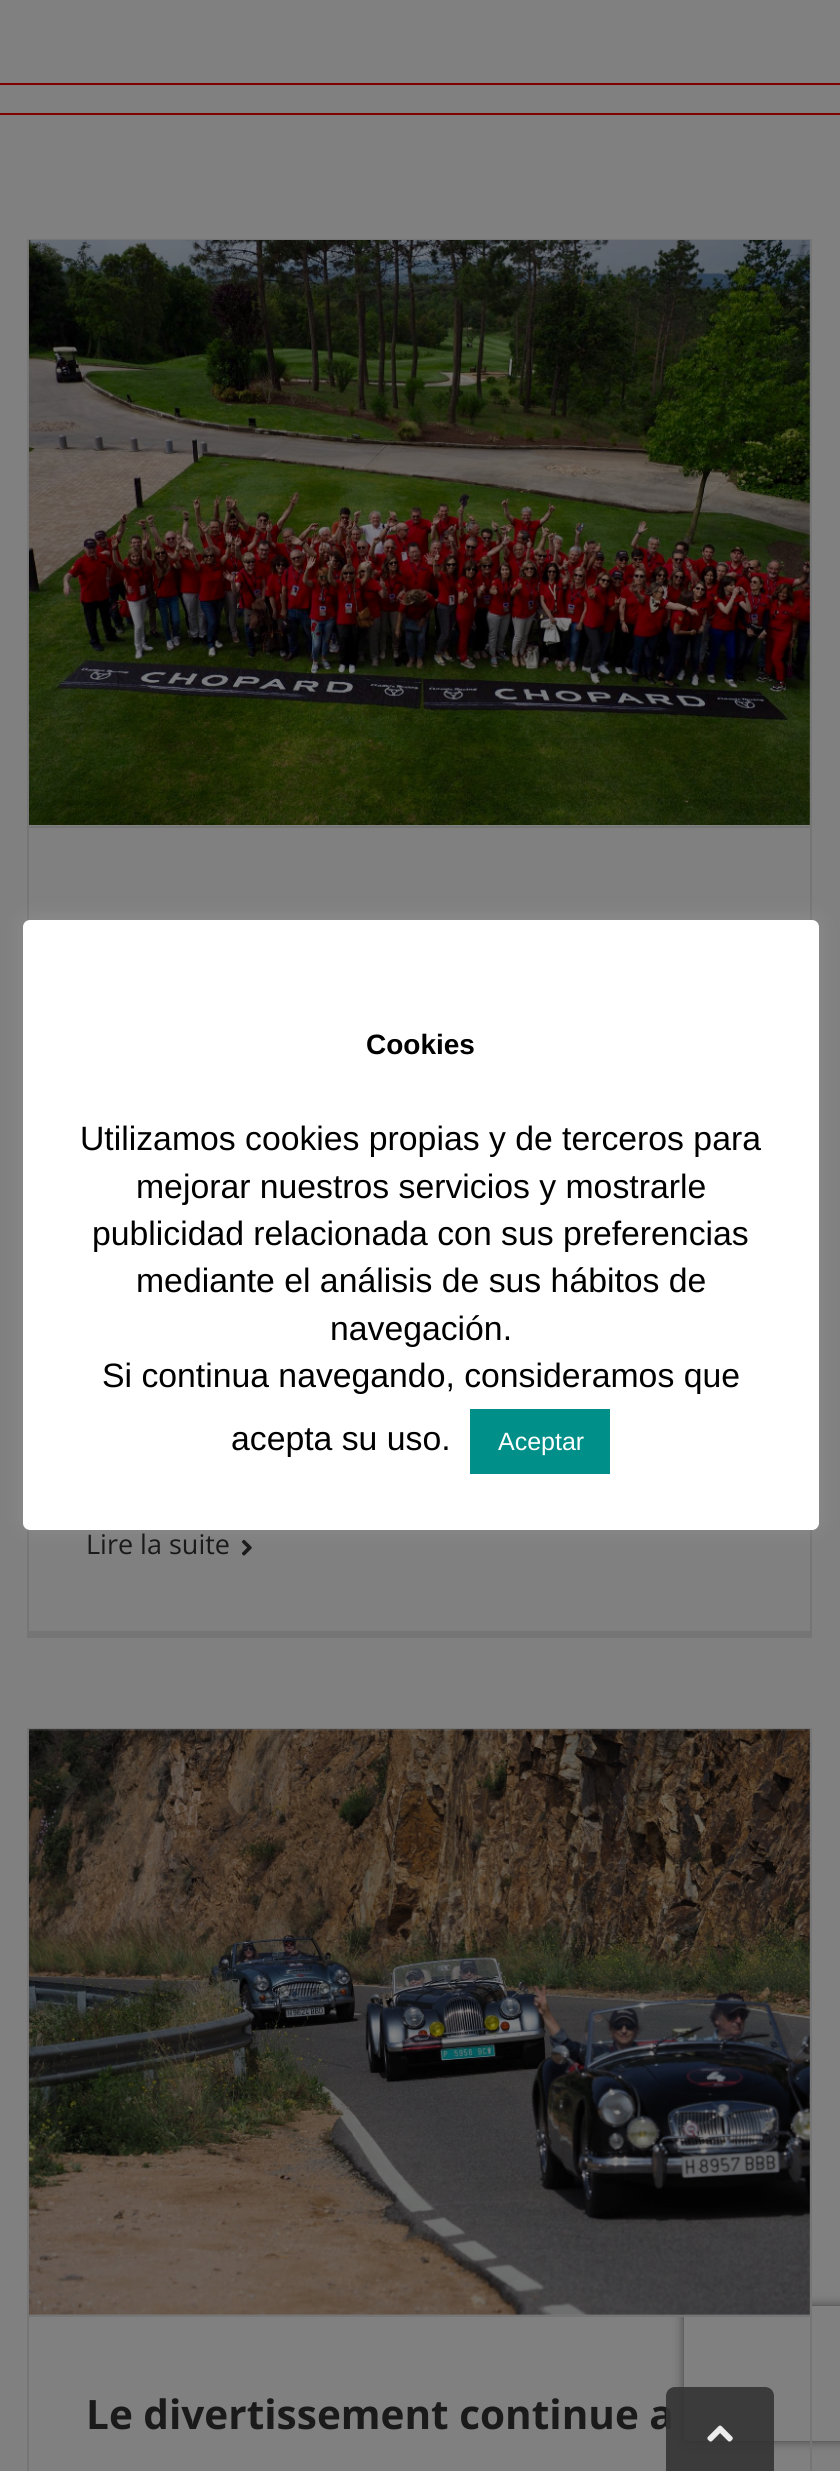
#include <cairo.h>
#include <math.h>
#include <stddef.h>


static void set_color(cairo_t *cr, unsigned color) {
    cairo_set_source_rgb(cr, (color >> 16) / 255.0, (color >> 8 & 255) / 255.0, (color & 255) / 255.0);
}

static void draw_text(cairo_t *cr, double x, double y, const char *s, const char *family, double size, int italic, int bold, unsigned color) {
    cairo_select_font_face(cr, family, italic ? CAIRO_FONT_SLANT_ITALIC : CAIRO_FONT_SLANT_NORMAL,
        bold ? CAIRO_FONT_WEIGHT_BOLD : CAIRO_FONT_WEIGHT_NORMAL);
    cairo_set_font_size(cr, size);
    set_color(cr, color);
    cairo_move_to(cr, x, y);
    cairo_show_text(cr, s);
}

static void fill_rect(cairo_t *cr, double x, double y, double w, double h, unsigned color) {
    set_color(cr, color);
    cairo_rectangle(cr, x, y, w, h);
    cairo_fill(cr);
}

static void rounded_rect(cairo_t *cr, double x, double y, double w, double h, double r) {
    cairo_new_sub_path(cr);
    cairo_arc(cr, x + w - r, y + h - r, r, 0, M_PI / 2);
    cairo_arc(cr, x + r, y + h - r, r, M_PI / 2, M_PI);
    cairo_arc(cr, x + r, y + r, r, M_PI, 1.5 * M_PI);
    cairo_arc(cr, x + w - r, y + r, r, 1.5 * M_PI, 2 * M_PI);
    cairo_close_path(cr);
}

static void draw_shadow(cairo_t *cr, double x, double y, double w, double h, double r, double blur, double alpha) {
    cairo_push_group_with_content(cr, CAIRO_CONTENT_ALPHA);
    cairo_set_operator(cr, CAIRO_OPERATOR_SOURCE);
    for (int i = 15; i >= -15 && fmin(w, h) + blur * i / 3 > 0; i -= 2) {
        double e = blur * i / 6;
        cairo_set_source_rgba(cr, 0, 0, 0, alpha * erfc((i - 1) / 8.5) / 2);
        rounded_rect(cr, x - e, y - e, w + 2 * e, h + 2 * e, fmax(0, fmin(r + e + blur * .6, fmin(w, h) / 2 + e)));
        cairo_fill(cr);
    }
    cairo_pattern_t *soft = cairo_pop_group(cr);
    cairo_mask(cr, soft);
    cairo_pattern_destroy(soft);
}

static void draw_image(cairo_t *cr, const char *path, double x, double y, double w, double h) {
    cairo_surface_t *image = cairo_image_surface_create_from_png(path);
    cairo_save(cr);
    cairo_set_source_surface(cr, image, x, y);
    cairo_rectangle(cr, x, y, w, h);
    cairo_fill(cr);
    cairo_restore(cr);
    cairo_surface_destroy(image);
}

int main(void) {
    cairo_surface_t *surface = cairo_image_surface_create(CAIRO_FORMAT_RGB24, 840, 2471);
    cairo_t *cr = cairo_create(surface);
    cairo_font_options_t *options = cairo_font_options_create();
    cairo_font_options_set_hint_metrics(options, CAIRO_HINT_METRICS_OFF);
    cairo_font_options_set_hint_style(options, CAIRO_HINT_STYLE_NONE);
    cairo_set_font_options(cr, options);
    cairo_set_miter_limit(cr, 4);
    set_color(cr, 0x808080);
    cairo_paint(cr);
    fill_rect(cr, 27, 239, 785, 2, 0x767575);
    fill_rect(cr, 810, 239, 2, 1399, 0x767575);
    fill_rect(cr, 27, 1631, 785, 7, 0x767575);
    fill_rect(cr, 27, 239, 2, 1399, 0x767575);
    draw_image(cr, "assets/img2.png", 241, 1539, 11, 17);
    set_color(cr, 0xACABAB);
    draw_shadow(cr, 23, 918, 796, 610, 7, 11, 0.3);
    set_color(cr, 0xFFFFFF);
    rounded_rect(cr, 23, 920, 796, 610, 7);
    cairo_fill(cr);
    draw_text(cr, 366, 1054, "Cookies", "Liberation Sans", 28, 0, 1, 0x000000);
    draw_text(cr, 80, 1150, "Utilizamos cookies propias y de terceros para", "Liberation Sans", 33.75, 0, 0, 0x000000);
    draw_text(cr, 136, 1198, "mejorar nuestros servicios y mostrarle", "Liberation Sans", 33.75, 0, 0, 0x000000);
    draw_text(cr, 92, 1245, "publicidad relacionada con sus preferencias", "Liberation Sans", 33.75, 0, 0, 0x000000);
    draw_text(cr, 136, 1292, "mediante el análisis de sus hábitos de", "Liberation Sans", 33.75, 0, 0, 0x000000);
    draw_text(cr, 330, 1340, "navegación.", "Liberation Sans", 33.75, 0, 0, 0x000000);
    draw_text(cr, 102, 1387, "Si continua navegando, consideramos que", "Liberation Sans", 33.75, 0, 0, 0x000000);
    draw_text(cr, 231, 1450, "acepta su uso.", "Liberation Sans", 33.75, 0, 0, 0x000000);
    fill_rect(cr, 470, 1409, 140, 65, 0x008F89);
    draw_text(cr, 498, 1450, "Aceptar", "Liberation Sans", 25, 0, 0, 0xFFFFFF);
    fill_rect(cr, 0, 83, 840, 2, 0x800000);
    fill_rect(cr, 0, 113, 840, 2, 0x800000);
    fill_rect(cr, 29, 826, 781, 2, 0x767575);
    draw_image(cr, "assets/img1.png", 29, 240, 781, 585);
    draw_text(cr, 86, 1554, "Lire la suite", "Open Sans", 27, 0, 0, 0x1A1A1A);
    fill_rect(cr, 27, 1728, 785, 2, 0x767575);
    cairo_save(cr);
    cairo_set_fill_rule(cr, CAIRO_FILL_RULE_EVEN_ODD);
    cairo_new_path(cr);
    cairo_move_to(cr, 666, 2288);
    cairo_line_to(cr, 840, 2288);
    cairo_line_to(cr, 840, 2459);
    cairo_line_to(cr, 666, 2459);
    cairo_close_path(cr);
    cairo_move_to(cr, 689, 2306);
    cairo_line_to(cr, 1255, 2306);
    cairo_curve_to(cr, 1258, 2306, 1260, 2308, 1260, 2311);
    cairo_line_to(cr, 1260, 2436);
    cairo_curve_to(cr, 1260, 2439, 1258, 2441, 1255, 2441);
    cairo_line_to(cr, 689, 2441);
    cairo_curve_to(cr, 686, 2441, 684, 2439, 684, 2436);
    cairo_line_to(cr, 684, 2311);
    cairo_curve_to(cr, 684, 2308, 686, 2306, 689, 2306);
    cairo_close_path(cr);
    cairo_clip(cr);
    set_color(cr, 0x404040);
    draw_shadow(cr, 684, 2306, 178, 135, 5, 5.5, 1);
    cairo_restore(cr);
    fill_rect(cr, 810, 1728, 2, 743, 0x767575);
    fill_rect(cr, 27, 1728, 2, 743, 0x767575);
    fill_rect(cr, 29, 2315, 781, 2, 0x767575);
    draw_image(cr, "assets/img3.png", 29, 1729, 781, 586);
    draw_text(cr, 86, 2429, "Le divertissement continue a", "Open Sans", 40.5, 0, 1, 0x1A1A1A);
    cairo_set_source_rgba(cr, 0.2, 0.2, 0.2, 0.9);
    cairo_new_path(cr);
    cairo_move_to(cr, 675, 2387);
    cairo_line_to(cr, 765, 2387);
    cairo_curve_to(cr, 770, 2387, 774, 2391, 774, 2396);
    cairo_line_to(cr, 774, 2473);
    cairo_line_to(cr, 666, 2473);
    cairo_line_to(cr, 666, 2396);
    cairo_curve_to(cr, 666, 2391, 670, 2387, 675, 2387);
    cairo_close_path(cr);
    cairo_fill(cr);
    draw_image(cr, "assets/img4.png", 707, 2425, 26, 17);
    cairo_surface_write_to_png(surface, "output.png");
    cairo_font_options_destroy(options);
    cairo_destroy(cr);
    cairo_surface_destroy(surface);
    return 0;
}
